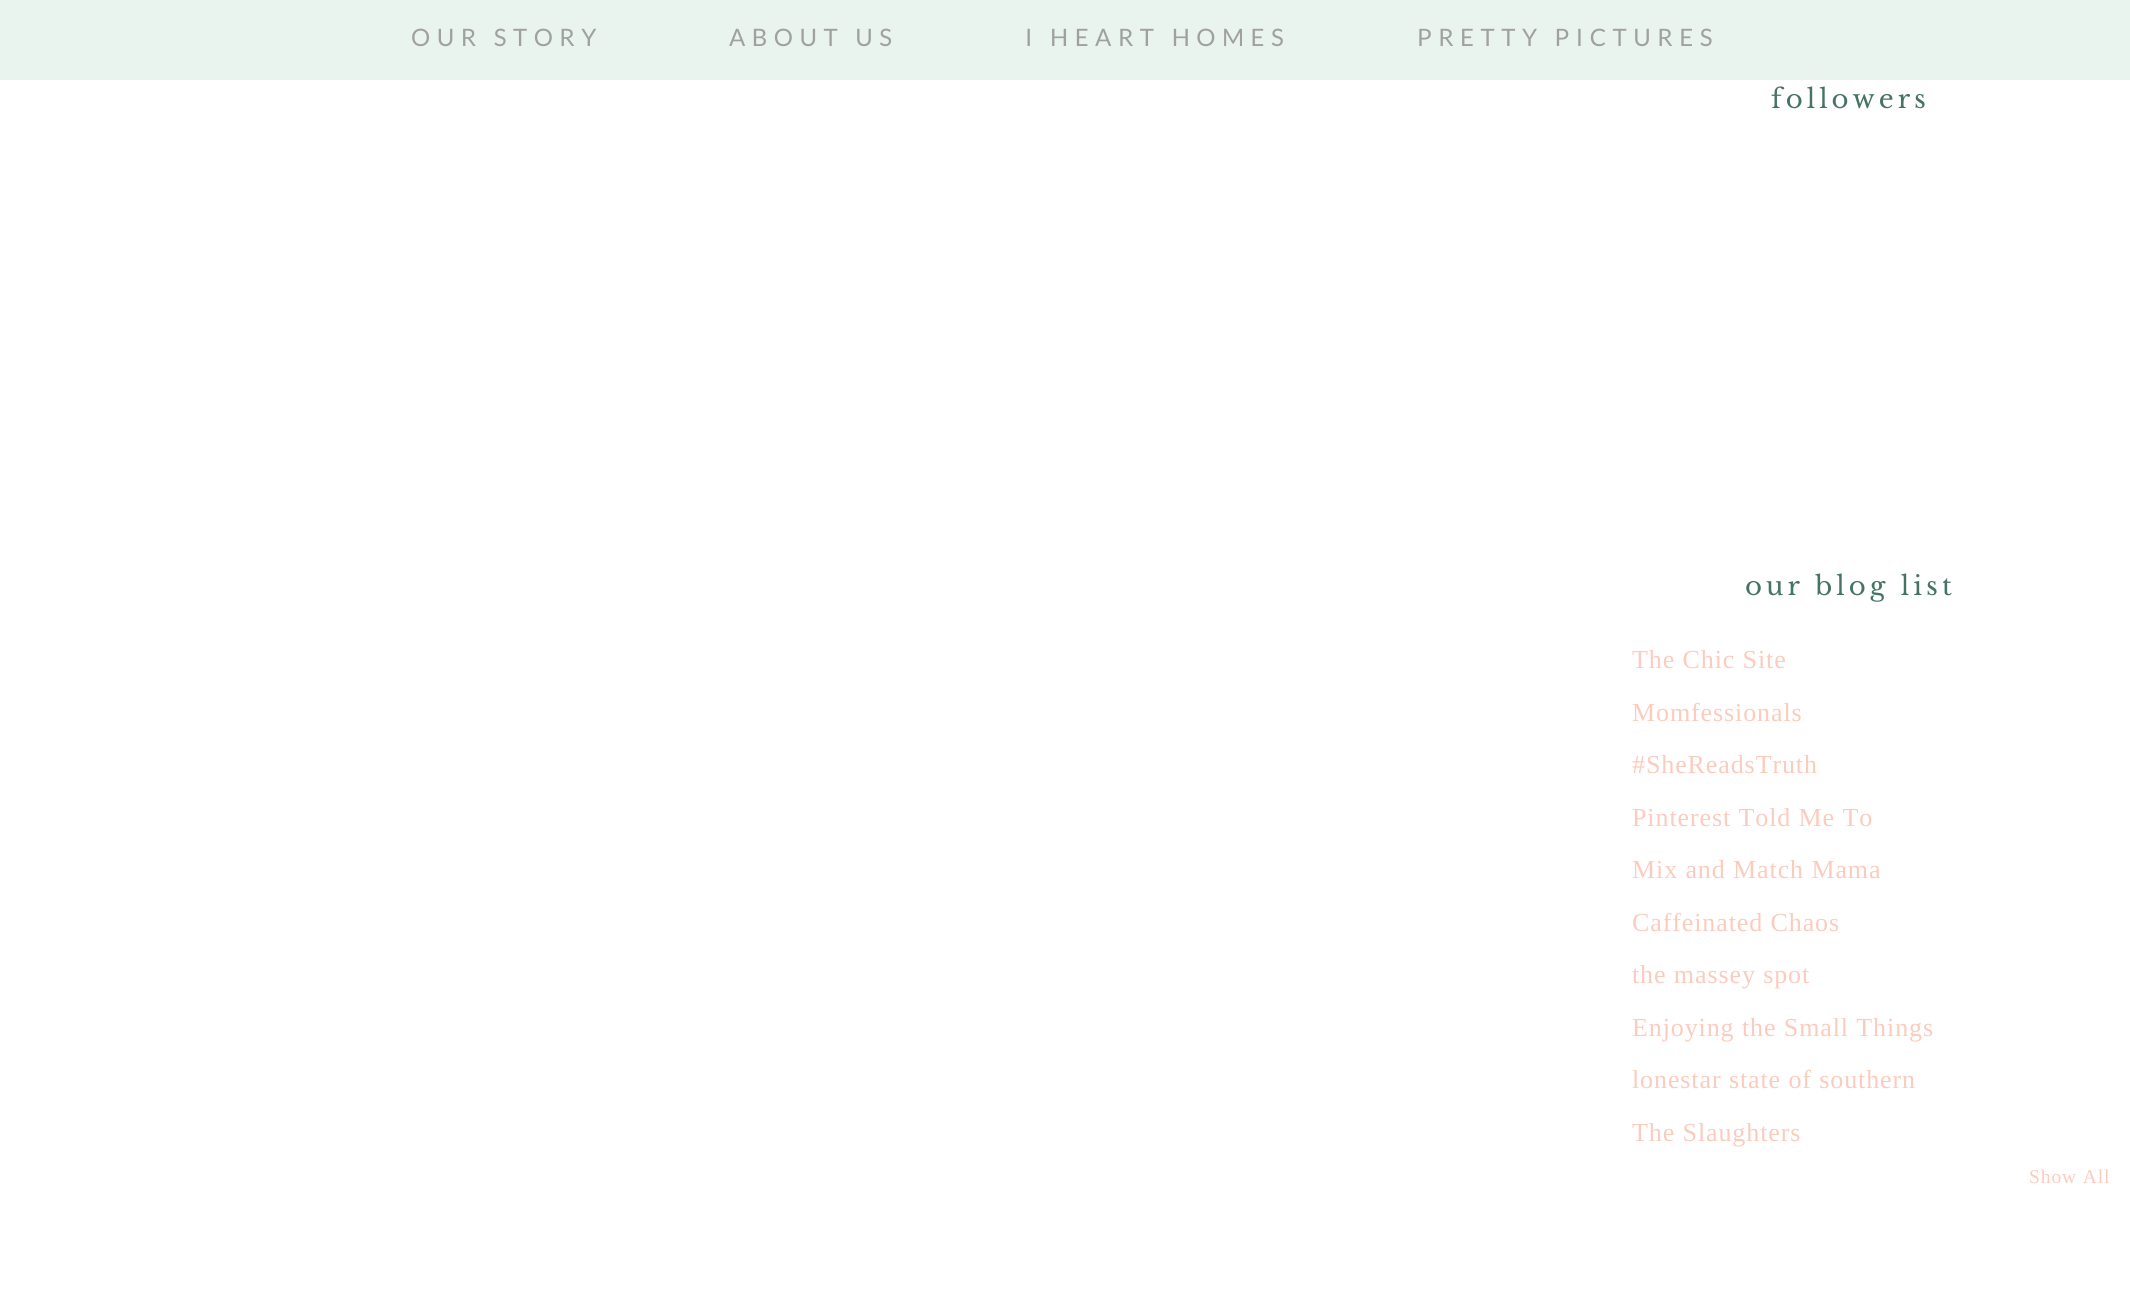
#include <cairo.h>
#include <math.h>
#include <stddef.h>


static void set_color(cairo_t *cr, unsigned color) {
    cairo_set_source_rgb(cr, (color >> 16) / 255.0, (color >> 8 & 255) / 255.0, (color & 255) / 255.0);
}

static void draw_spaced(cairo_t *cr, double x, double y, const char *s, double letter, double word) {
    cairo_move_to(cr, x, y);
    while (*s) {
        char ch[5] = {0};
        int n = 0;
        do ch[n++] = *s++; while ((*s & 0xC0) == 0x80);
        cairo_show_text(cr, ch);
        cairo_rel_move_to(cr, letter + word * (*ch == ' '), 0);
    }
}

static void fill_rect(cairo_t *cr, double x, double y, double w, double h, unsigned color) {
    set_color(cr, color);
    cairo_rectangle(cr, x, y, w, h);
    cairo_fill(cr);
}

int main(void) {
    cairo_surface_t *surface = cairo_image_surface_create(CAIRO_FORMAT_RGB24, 2130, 1307);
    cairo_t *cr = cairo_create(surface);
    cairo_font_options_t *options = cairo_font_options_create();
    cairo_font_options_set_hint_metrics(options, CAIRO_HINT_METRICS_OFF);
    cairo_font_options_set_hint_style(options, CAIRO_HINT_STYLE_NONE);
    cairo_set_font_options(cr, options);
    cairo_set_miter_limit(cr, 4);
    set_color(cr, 0xFFFFFF);
    cairo_paint(cr);
    fill_rect(cr, 0, 0, 2130, 80, 0xE9F4EE);
    cairo_select_font_face(cr, "Lato", CAIRO_FONT_SLANT_NORMAL, CAIRO_FONT_WEIGHT_NORMAL);
    cairo_set_font_size(cr, 24);
    set_color(cr, 0xA0A0A0);
    draw_spaced(cr, 411, 46, "OUR STORY", 6.5, 0);
    draw_spaced(cr, 729, 46, "ABOUT US", 6.5, 0);
    draw_spaced(cr, 1025, 46, "I HEART HOMES", 6.5, 0);
    draw_spaced(cr, 1417, 46, "PRETTY PICTURES", 6.5, 0);
    cairo_select_font_face(cr, "Libre Baskerville", CAIRO_FONT_SLANT_NORMAL, CAIRO_FONT_WEIGHT_NORMAL);
    cairo_set_font_size(cr, 26);
    set_color(cr, 0x457466);
    draw_spaced(cr, 1771, 108, "followers", 4, 0);
    draw_spaced(cr, 1745, 595, "our blog list", 4, 0);
    cairo_select_font_face(cr, "Liberation Serif", CAIRO_FONT_SLANT_NORMAL, CAIRO_FONT_WEIGHT_NORMAL);
    set_color(cr, 0xFBCCBE);
    draw_spaced(cr, 1632, 668, "The Chic Site", 0.9, 0);
    draw_spaced(cr, 1632, 721, "Momfessionals", 0.9, 0);
    draw_spaced(cr, 1632, 773, "#SheReadsTruth", 0.9, 0);
    draw_spaced(cr, 1632, 826, "Pinterest Told Me To", 0.9, 0);
    draw_spaced(cr, 1632, 878, "Mix and Match Mama", 0.9, 0);
    draw_spaced(cr, 1632, 931, "Caffeinated Chaos", 0.9, 0);
    draw_spaced(cr, 1632, 983, "the massey spot", 0.9, 0);
    draw_spaced(cr, 1632, 1036, "Enjoying the Small Things", 0.9, 0);
    draw_spaced(cr, 1632, 1088, "lonestar state of southern", 0.9, 0);
    draw_spaced(cr, 1632, 1141, "The Slaughters", 0.9, 0);
    cairo_set_font_size(cr, 19.5);
    draw_spaced(cr, 2029, 1183, "Show All", 0.9, 0);
    cairo_surface_write_to_png(surface, "output.png");
    cairo_font_options_destroy(options);
    cairo_destroy(cr);
    cairo_surface_destroy(surface);
    return 0;
}
